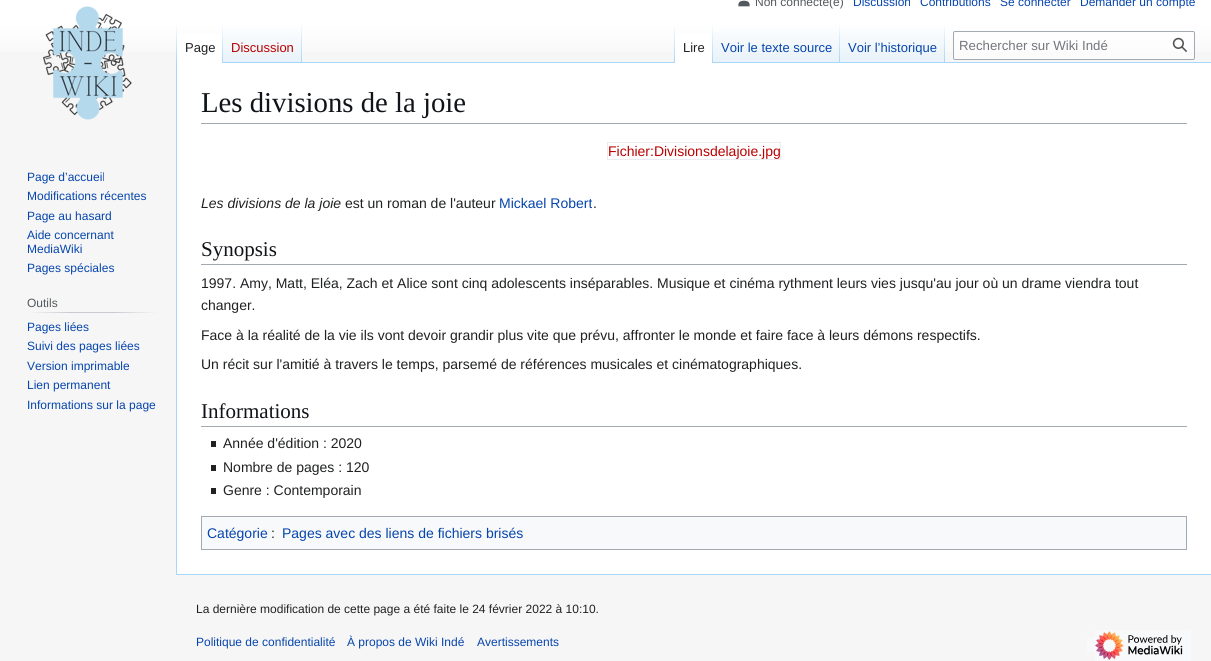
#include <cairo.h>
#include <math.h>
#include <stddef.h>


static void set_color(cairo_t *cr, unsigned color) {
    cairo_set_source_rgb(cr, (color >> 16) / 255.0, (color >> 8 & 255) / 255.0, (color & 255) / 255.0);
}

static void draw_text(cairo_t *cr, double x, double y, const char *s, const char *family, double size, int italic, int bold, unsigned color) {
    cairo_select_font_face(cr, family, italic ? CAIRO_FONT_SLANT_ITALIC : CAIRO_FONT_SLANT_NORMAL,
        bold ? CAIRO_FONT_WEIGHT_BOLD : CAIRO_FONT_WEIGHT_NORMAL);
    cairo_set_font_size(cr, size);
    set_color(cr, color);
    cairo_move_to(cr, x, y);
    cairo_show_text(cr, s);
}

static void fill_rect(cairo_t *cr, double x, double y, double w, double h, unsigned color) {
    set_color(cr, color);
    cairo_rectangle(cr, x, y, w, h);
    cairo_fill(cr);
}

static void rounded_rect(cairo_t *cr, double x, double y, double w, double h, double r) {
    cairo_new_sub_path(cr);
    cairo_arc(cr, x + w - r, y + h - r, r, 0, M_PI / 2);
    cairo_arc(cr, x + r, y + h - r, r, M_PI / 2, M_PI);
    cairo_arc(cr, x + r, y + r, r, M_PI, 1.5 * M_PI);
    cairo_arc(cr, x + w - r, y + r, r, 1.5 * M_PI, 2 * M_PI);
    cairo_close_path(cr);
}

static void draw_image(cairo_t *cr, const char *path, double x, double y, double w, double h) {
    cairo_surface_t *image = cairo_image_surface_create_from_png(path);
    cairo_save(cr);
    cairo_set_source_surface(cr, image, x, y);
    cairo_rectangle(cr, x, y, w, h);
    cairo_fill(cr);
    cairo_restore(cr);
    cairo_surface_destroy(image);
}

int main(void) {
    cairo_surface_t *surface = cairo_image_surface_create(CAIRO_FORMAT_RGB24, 1211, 661);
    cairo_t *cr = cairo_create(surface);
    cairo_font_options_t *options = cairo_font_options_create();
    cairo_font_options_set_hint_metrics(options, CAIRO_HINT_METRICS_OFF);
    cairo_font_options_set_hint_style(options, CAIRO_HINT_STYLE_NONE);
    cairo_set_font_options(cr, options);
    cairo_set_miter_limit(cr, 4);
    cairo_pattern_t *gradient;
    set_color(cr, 0xF6F6F6);
    cairo_paint(cr);
    gradient = cairo_pattern_create_linear(606, -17, 606, 63);
    cairo_pattern_add_color_stop_rgba(gradient, 0.5, 1, 1, 1, 1);
    cairo_pattern_add_color_stop_rgba(gradient, 1, 0.965, 0.965, 0.965, 1);
    cairo_set_source(cr, gradient);
    cairo_pattern_destroy(gradient);
    cairo_rectangle(cr, 0, 0, 1211, 52);
    cairo_fill(cr);
    draw_image(cr, "assets/img1.png", 738, 0, 12, 7);
    draw_text(cr, 755, 6, "Non connecté(e)", "Liberation Sans", 12, 0, 0, 0x54595D);
    draw_text(cr, 853, 6, "Discussion", "Liberation Sans", 12, 0, 0, 0x0645AD);
    draw_text(cr, 920, 6, "Contributions", "Liberation Sans", 12, 0, 0, 0x0645AD);
    draw_text(cr, 1000, 6, "Se connecter", "Liberation Sans", 12, 0, 0, 0x0645AD);
    draw_text(cr, 1080, 6, "Demander un compte", "Liberation Sans", 12, 0, 0, 0x0645AD);
    fill_rect(cr, 176, 574, 1035, 1, 0xA7D7F9);
    fill_rect(cr, 176, 62, 1, 513, 0xA7D7F9);
    gradient = cairo_pattern_create_linear(177, 23, 177, 63);
    cairo_pattern_add_color_stop_rgba(gradient, 0, 0.655, 0.843, 0.976, 0);
    cairo_pattern_add_color_stop_rgba(gradient, 1, 0.655, 0.843, 0.976, 1);
    cairo_set_source(cr, gradient);
    cairo_pattern_destroy(gradient);
    cairo_rectangle(cr, 176, 23, 1, 40);
    cairo_fill(cr);
    fill_rect(cr, 177, 34, 45, 29, 0xFFFFFF);
    gradient = cairo_pattern_create_linear(223, 23, 223, 63);
    cairo_pattern_add_color_stop_rgba(gradient, 0, 1, 1, 1, 1);
    cairo_pattern_add_color_stop_rgba(gradient, 1, 0.655, 0.843, 0.976, 1);
    cairo_set_source(cr, gradient);
    cairo_pattern_destroy(gradient);
    cairo_rectangle(cr, 222, 23, 1, 40);
    cairo_fill(cr);
    draw_text(cr, 185, 52, "Page", "Liberation Sans", 13, 0, 0, 0x202122);
    gradient = cairo_pattern_create_linear(263, 63, 263, 23);
    cairo_pattern_add_color_stop_rgba(gradient, 0, 0.467, 0.757, 0.965, 1);
    cairo_pattern_add_color_stop_rgba(gradient, 0.03, 0.91, 0.949, 0.973, 1);
    cairo_pattern_add_color_stop_rgba(gradient, 1, 1, 1, 1, 1);
    cairo_set_source(cr, gradient);
    cairo_pattern_destroy(gradient);
    cairo_rectangle(cr, 223, 29, 79, 34);
    cairo_fill(cr);
    gradient = cairo_pattern_create_linear(302, 23, 302, 63);
    cairo_pattern_add_color_stop_rgba(gradient, 0, 0.655, 0.843, 0.976, 0);
    cairo_pattern_add_color_stop_rgba(gradient, 1, 0.655, 0.843, 0.976, 1);
    cairo_set_source(cr, gradient);
    cairo_pattern_destroy(gradient);
    cairo_rectangle(cr, 301, 23, 1, 40);
    cairo_fill(cr);
    draw_text(cr, 231, 52, "Discussion", "Liberation Sans", 13, 0, 0, 0xBA0000);
    fill_rect(cr, 302, 62, 909, 1, 0xA7D7F9);
    gradient = cairo_pattern_create_linear(675, 23, 675, 63);
    cairo_pattern_add_color_stop_rgba(gradient, 0, 0.655, 0.843, 0.976, 0);
    cairo_pattern_add_color_stop_rgba(gradient, 1, 0.655, 0.843, 0.976, 1);
    cairo_set_source(cr, gradient);
    cairo_pattern_destroy(gradient);
    cairo_rectangle(cr, 674, 23, 1, 40);
    cairo_fill(cr);
    fill_rect(cr, 675, 34, 37, 29, 0xFFFFFF);
    gradient = cairo_pattern_create_linear(713, 23, 713, 63);
    cairo_pattern_add_color_stop_rgba(gradient, 0, 1, 1, 1, 1);
    cairo_pattern_add_color_stop_rgba(gradient, 1, 0.655, 0.843, 0.976, 1);
    cairo_set_source(cr, gradient);
    cairo_pattern_destroy(gradient);
    cairo_rectangle(cr, 712, 23, 1, 40);
    cairo_fill(cr);
    draw_text(cr, 683, 52, "Lire", "Liberation Sans", 13, 0, 0, 0x202122);
    gradient = cairo_pattern_create_linear(777, 63, 777, 23);
    cairo_pattern_add_color_stop_rgba(gradient, 0, 0.467, 0.757, 0.965, 1);
    cairo_pattern_add_color_stop_rgba(gradient, 0.03, 0.91, 0.949, 0.973, 1);
    cairo_pattern_add_color_stop_rgba(gradient, 1, 1, 1, 1, 1);
    cairo_set_source(cr, gradient);
    cairo_pattern_destroy(gradient);
    cairo_rectangle(cr, 713, 29, 127, 33);
    cairo_fill(cr);
    gradient = cairo_pattern_create_linear(840, 23, 840, 63);
    cairo_pattern_add_color_stop_rgba(gradient, 0, 0.655, 0.843, 0.976, 0);
    cairo_pattern_add_color_stop_rgba(gradient, 1, 0.655, 0.843, 0.976, 1);
    cairo_set_source(cr, gradient);
    cairo_pattern_destroy(gradient);
    cairo_rectangle(cr, 839, 23, 1, 40);
    cairo_fill(cr);
    draw_text(cr, 721, 52, "Voir le texte source", "Liberation Sans", 13, 0, 0, 0x0645AD);
    gradient = cairo_pattern_create_linear(893, 63, 893, 23);
    cairo_pattern_add_color_stop_rgba(gradient, 0, 0.467, 0.757, 0.965, 1);
    cairo_pattern_add_color_stop_rgba(gradient, 0.03, 0.91, 0.949, 0.973, 1);
    cairo_pattern_add_color_stop_rgba(gradient, 1, 1, 1, 1, 1);
    cairo_set_source(cr, gradient);
    cairo_pattern_destroy(gradient);
    cairo_rectangle(cr, 840, 29, 105, 33);
    cairo_fill(cr);
    gradient = cairo_pattern_create_linear(945, 23, 945, 63);
    cairo_pattern_add_color_stop_rgba(gradient, 0, 0.655, 0.843, 0.976, 0);
    cairo_pattern_add_color_stop_rgba(gradient, 1, 0.655, 0.843, 0.976, 1);
    cairo_set_source(cr, gradient);
    cairo_pattern_destroy(gradient);
    cairo_rectangle(cr, 944, 23, 1, 40);
    cairo_fill(cr);
    draw_text(cr, 848, 52, "Voir l’historique", "Liberation Sans", 13, 0, 0, 0x0645AD);
    cairo_set_source_rgba(cr, 1, 1, 1, 0.5);
    rounded_rect(cr, 953.5, 31.5, 241, 28, 1.5);
    cairo_fill_preserve(cr);
    set_color(cr, 0xA2A9B1);
    cairo_set_line_width(cr, 1);
    cairo_stroke(cr);
    draw_text(cr, 959, 50, "Rechercher sur Wiki Indé", "Liberation Sans", 13.25, 0, 0, 0x72777D);
    draw_image(cr, "assets/img2.png", 1172, 37, 15, 15);
    draw_image(cr, "assets/img3.png", 43, 6, 89, 114);
    draw_text(cr, 27, 181, "Page d’accueil", "Liberation Sans", 12, 0, 0, 0x0645AD);
    draw_text(cr, 27, 200, "Modifications récentes", "Liberation Sans", 12, 0, 0, 0x0645AD);
    draw_text(cr, 27, 220, "Page au hasard", "Liberation Sans", 12, 0, 0, 0x0645AD);
    draw_text(cr, 27, 239, "Aide concernant", "Liberation Sans", 12, 0, 0, 0x0645AD);
    draw_text(cr, 27, 253, "MediaWiki", "Liberation Sans", 12, 0, 0, 0x0645AD);
    draw_text(cr, 27, 272, "Pages spéciales", "Liberation Sans", 12, 0, 0, 0x0645AD);
    gradient = cairo_pattern_create_linear(27, 313, 158, 313);
    cairo_pattern_add_color_stop_rgba(gradient, 0, 0.965, 0.965, 0.965, 1);
    cairo_pattern_add_color_stop_rgba(gradient, 0.33, 0.784, 0.8, 0.82, 1);
    cairo_pattern_add_color_stop_rgba(gradient, 0.66, 0.784, 0.8, 0.82, 1);
    cairo_pattern_add_color_stop_rgba(gradient, 1, 0.965, 0.965, 0.965, 1);
    cairo_set_source(cr, gradient);
    cairo_pattern_destroy(gradient);
    cairo_rectangle(cr, 27, 312, 131, 1);
    cairo_fill(cr);
    draw_text(cr, 27, 307, "Outils", "Liberation Sans", 12, 0, 0, 0x54595D);
    draw_text(cr, 27, 331, "Pages liées", "Liberation Sans", 12, 0, 0, 0x0645AD);
    draw_text(cr, 27, 350, "Suivi des pages liées", "Liberation Sans", 12, 0, 0, 0x0645AD);
    draw_text(cr, 27, 370, "Version imprimable", "Liberation Sans", 12, 0, 0, 0x0645AD);
    draw_text(cr, 27, 389, "Lien permanent", "Liberation Sans", 12, 0, 0, 0x0645AD);
    draw_text(cr, 27, 409, "Informations sur la page", "Liberation Sans", 12, 0, 0, 0x0645AD);
    fill_rect(cr, 177, 63, 1034, 511, 0xFFFFFF);
    fill_rect(cr, 201, 123, 986, 1, 0xA2A9B1);
    draw_text(cr, 201, 112, "Les divisions de la joie", "Liberation Serif", 28.75, 0, 0, 0x101418);
    cairo_rectangle(cr, 607.5, 142.5, 173, 17);
    set_color(cr, 0xEAECF0);
    cairo_stroke(cr);
    draw_text(cr, 608, 156, "Fichier:Divisionsdelajoie.jpg", "Liberation Sans", 14, 0, 0, 0xBA0000);
    draw_text(cr, 201, 208, "Les divisions de la joie", "Liberation Sans", 14, 1, 0, 0x202122);
    draw_text(cr, 345, 208, "est un roman de l'auteur", "Liberation Sans", 14, 0, 0, 0x202122);
    draw_text(cr, 499, 208, "Mickael Robert", "Liberation Sans", 14, 0, 0, 0x0645AD);
    draw_text(cr, 593, 208, ".", "Liberation Sans", 14, 0, 0, 0x202122);
    fill_rect(cr, 201, 264, 986, 1, 0xA2A9B1);
    draw_text(cr, 201, 256, "Synopsis", "Liberation Serif", 21, 0, 0, 0x101418);
    draw_text(cr, 201, 288, "1997. Amy, Matt, Eléa, Zach et Alice sont cinq adolescents inséparables. Musique et cinéma rythment leurs vies jusqu'au jour où un drame viendra tout", "Liberation Sans", 14, 0, 0, 0x202122);
    draw_text(cr, 201, 310, "changer.", "Liberation Sans", 14, 0, 0, 0x202122);
    draw_text(cr, 201, 340, "Face à la réalité de la vie ils vont devoir grandir plus vite que prévu, affronter le monde et faire face à leurs démons respectifs.", "Liberation Sans", 14, 0, 0, 0x202122);
    draw_text(cr, 201, 369, "Un récit sur l'amitié à travers le temps, parsemé de références musicales et cinématographiques.", "Liberation Sans", 14, 0, 0, 0x202122);
    fill_rect(cr, 201, 426, 986, 1, 0xA2A9B1);
    draw_text(cr, 201, 418, "Informations", "Liberation Serif", 21, 0, 0, 0x101418);
    fill_rect(cr, 211, 441, 5, 6, 0x202122);
    draw_text(cr, 223, 448, "Année d'édition : 2020", "Liberation Sans", 14, 0, 0, 0x202122);
    fill_rect(cr, 211, 465, 5, 6, 0x202122);
    draw_text(cr, 223, 472, "Nombre de pages : 120", "Liberation Sans", 14, 0, 0, 0x202122);
    fill_rect(cr, 211, 488, 5, 6, 0x202122);
    draw_text(cr, 223, 495, "Genre : Contemporain", "Liberation Sans", 14, 0, 0, 0x202122);
    set_color(cr, 0xF8F9FA);
    cairo_rectangle(cr, 201.5, 516.5, 985, 33);
    cairo_fill_preserve(cr);
    set_color(cr, 0xA2A9B1);
    cairo_stroke(cr);
    draw_text(cr, 207, 538, "Catégorie", "Liberation Sans", 14, 0, 0, 0x0645AD);
    draw_text(cr, 271, 538, ":", "Liberation Sans", 14, 0, 0, 0x202122);
    draw_text(cr, 282, 538, "Pages avec des liens de fichiers brisés", "Liberation Sans", 14, 0, 0, 0x0645AD);
    draw_text(cr, 196, 613, "La dernière modification de cette page a été faite le 24 février 2022 à 10:10.", "Liberation Sans", 12, 0, 0, 0x202122);
    draw_text(cr, 196, 646, "Politique de confidentialité", "Liberation Sans", 12, 0, 0, 0x0645AD);
    draw_text(cr, 347, 646, "À propos de Wiki Indé", "Liberation Sans", 12, 0, 0, 0x0645AD);
    draw_text(cr, 477, 646, "Avertissements", "Liberation Sans", 12, 0, 0, 0x0645AD);
    fill_rect(cr, 1095, 630, 96, 31, 0xF8F9FA);
    fill_rect(cr, 1087, 638, 8, 14, 0xF8F9FA);
    draw_image(cr, "assets/img4.png", 1095, 631, 88, 29);
    cairo_surface_write_to_png(surface, "output.png");
    cairo_font_options_destroy(options);
    cairo_destroy(cr);
    cairo_surface_destroy(surface);
    return 0;
}
